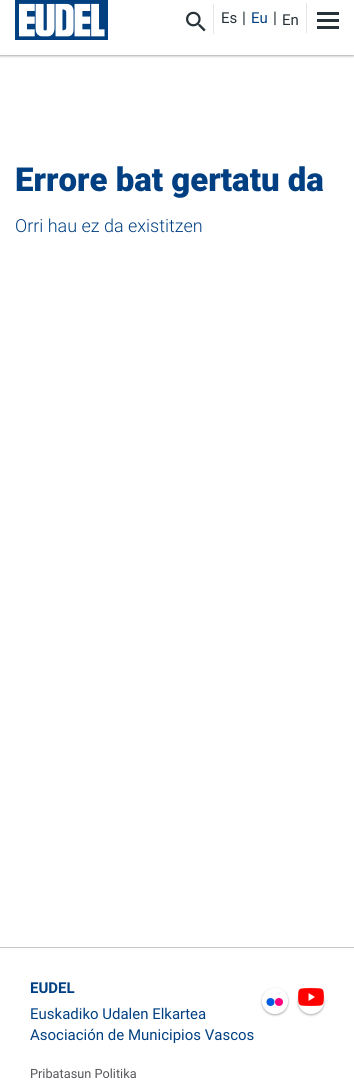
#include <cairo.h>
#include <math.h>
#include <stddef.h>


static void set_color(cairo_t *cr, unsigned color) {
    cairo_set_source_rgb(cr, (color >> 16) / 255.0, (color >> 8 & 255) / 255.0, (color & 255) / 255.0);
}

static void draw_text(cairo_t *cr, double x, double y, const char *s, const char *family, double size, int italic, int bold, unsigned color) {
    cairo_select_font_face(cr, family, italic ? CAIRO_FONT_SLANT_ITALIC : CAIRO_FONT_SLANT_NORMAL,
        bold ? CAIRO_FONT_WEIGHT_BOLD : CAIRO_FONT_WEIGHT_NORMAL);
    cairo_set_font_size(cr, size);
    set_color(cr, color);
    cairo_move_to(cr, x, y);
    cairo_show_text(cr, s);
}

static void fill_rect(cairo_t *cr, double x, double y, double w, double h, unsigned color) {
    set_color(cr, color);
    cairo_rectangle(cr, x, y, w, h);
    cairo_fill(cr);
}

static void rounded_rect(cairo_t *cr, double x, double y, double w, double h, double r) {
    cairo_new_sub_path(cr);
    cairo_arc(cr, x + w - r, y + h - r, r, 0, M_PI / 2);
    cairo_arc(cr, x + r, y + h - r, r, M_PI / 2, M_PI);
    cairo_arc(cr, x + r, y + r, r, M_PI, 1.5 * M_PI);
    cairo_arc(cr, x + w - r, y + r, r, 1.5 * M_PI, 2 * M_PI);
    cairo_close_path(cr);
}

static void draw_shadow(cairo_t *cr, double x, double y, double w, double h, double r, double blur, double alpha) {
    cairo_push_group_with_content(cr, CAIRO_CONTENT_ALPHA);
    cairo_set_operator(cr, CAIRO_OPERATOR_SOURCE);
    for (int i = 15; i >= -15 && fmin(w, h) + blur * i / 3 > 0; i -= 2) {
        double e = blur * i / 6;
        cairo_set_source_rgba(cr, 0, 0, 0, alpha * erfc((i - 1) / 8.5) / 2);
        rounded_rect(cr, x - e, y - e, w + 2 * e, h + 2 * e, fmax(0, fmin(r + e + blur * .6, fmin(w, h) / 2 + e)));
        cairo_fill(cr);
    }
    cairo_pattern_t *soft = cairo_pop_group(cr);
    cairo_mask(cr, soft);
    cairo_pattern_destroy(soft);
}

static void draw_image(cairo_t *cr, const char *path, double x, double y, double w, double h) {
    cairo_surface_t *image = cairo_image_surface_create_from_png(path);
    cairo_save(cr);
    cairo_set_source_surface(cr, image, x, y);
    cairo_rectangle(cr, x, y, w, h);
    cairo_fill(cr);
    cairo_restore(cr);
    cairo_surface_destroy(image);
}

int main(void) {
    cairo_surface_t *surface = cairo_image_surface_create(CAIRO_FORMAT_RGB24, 354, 1088);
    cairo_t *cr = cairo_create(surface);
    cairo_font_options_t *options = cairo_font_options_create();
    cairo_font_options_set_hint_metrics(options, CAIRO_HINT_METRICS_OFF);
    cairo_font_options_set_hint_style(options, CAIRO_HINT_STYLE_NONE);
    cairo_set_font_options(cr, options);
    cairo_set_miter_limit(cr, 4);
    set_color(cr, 0xFFFFFF);
    cairo_paint(cr);
    set_color(cr, 0x000000);
    draw_shadow(cr, 0, 1, 354, 55, 0, 1, 0.24);
    draw_shadow(cr, 0, 1, 354, 55, 0, 1.5, 0.12);
    fill_rect(cr, 0, 0, 354, 55, 0xFFFFFF);
    draw_image(cr, "assets/img1.png", 15, 0, 93, 40);
    draw_image(cr, "assets/img2.png", 186, 11, 20, 21);
    fill_rect(cr, 213, 4, 1, 30, 0xE6E6E6);
    draw_text(cr, 221, 23, "Es", "Roboto", 15, 0, 0, 0x263238);
    draw_text(cr, 242, 23, "|", "Roboto", 16, 0, 0, 0x263238);
    draw_text(cr, 251, 23, "Eu", "Roboto", 15, 0, 0, 0x003F81);
    draw_text(cr, 273, 23, "|", "Roboto", 16, 0, 0, 0x263238);
    draw_text(cr, 282, 25, "En", "Roboto", 15, 0, 0, 0x263238);
    fill_rect(cr, 306, 3, 1, 30, 0xE6E6E6);
    fill_rect(cr, 317, 12, 22, 3, 0x263238);
    fill_rect(cr, 317, 19, 22, 3, 0x263238);
    fill_rect(cr, 317, 26, 22, 3, 0x263238);
    draw_text(cr, 15, 191, "Errore bat gertatu da", "Roboto Black", 33, 0, 0, 0x003F81);
    draw_text(cr, 15, 232, "Orri hau ez da existitzen", "Roboto Light", 18, 0, 0, 0x003F81);
    fill_rect(cr, 0, 947, 354, 1, 0xC7C7C7);
    draw_text(cr, 30, 993, "EUDEL", "Roboto", 15, 0, 1, 0x003F81);
    draw_text(cr, 30, 1019, "Euskadiko Udalen Elkartea", "Roboto", 15, 0, 0, 0x003F81);
    draw_text(cr, 30, 1040, "Asociación de Municipios Vascos", "Roboto", 15, 0, 0, 0x003F81);
    draw_text(cr, 30, 1078, "Pribatasun Politika", "Roboto", 12.75, 0, 0, 0x54565B);
    cairo_save(cr);
    cairo_set_fill_rule(cr, CAIRO_FILL_RULE_EVEN_ODD);
    cairo_new_path(cr);
    cairo_move_to(cr, 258, 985);
    cairo_line_to(cr, 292, 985);
    cairo_line_to(cr, 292, 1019);
    cairo_line_to(cr, 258, 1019);
    cairo_close_path(cr);
    cairo_move_to(cr, 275, 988);
    cairo_curve_to(cr, 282, 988, 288, 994, 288, 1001);
    cairo_curve_to(cr, 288, 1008, 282, 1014, 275, 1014);
    cairo_curve_to(cr, 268, 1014, 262, 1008, 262, 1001);
    cairo_curve_to(cr, 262, 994, 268, 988, 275, 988);
    cairo_close_path(cr);
    cairo_clip(cr);
    set_color(cr, 0x000000);
    draw_shadow(cr, 262, 989, 26, 26, 13, 1, 0.24);
    cairo_restore(cr);
    cairo_save(cr);
    cairo_set_fill_rule(cr, CAIRO_FILL_RULE_EVEN_ODD);
    cairo_new_path(cr);
    cairo_move_to(cr, 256, 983);
    cairo_line_to(cr, 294, 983);
    cairo_line_to(cr, 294, 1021);
    cairo_line_to(cr, 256, 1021);
    cairo_close_path(cr);
    cairo_move_to(cr, 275, 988);
    cairo_curve_to(cr, 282, 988, 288, 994, 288, 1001);
    cairo_curve_to(cr, 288, 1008, 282, 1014, 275, 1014);
    cairo_curve_to(cr, 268, 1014, 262, 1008, 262, 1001);
    cairo_curve_to(cr, 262, 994, 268, 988, 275, 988);
    cairo_close_path(cr);
    cairo_clip(cr);
    set_color(cr, 0x000000);
    draw_shadow(cr, 262, 989, 26, 26, 13, 1.5, 0.12);
    cairo_restore(cr);
    set_color(cr, 0x005DE1);
    cairo_arc(cr, 270.5, 1002, 4, 0, 2 * M_PI);
    cairo_fill(cr);
    set_color(cr, 0xFF007E);
    cairo_arc(cr, 279, 1002, 4, 0, 2 * M_PI);
    cairo_fill(cr);
    cairo_save(cr);
    cairo_set_fill_rule(cr, CAIRO_FILL_RULE_EVEN_ODD);
    cairo_new_path(cr);
    cairo_move_to(cr, 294, 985);
    cairo_line_to(cr, 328, 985);
    cairo_line_to(cr, 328, 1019);
    cairo_line_to(cr, 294, 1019);
    cairo_close_path(cr);
    cairo_move_to(cr, 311, 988);
    cairo_curve_to(cr, 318, 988, 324, 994, 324, 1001);
    cairo_curve_to(cr, 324, 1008, 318, 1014, 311, 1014);
    cairo_curve_to(cr, 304, 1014, 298, 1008, 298, 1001);
    cairo_curve_to(cr, 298, 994, 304, 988, 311, 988);
    cairo_close_path(cr);
    cairo_clip(cr);
    set_color(cr, 0x000000);
    draw_shadow(cr, 298, 989, 26, 26, 13, 1, 0.24);
    cairo_restore(cr);
    cairo_save(cr);
    cairo_set_fill_rule(cr, CAIRO_FILL_RULE_EVEN_ODD);
    cairo_new_path(cr);
    cairo_move_to(cr, 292, 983);
    cairo_line_to(cr, 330, 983);
    cairo_line_to(cr, 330, 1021);
    cairo_line_to(cr, 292, 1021);
    cairo_close_path(cr);
    cairo_move_to(cr, 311, 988);
    cairo_curve_to(cr, 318, 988, 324, 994, 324, 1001);
    cairo_curve_to(cr, 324, 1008, 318, 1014, 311, 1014);
    cairo_curve_to(cr, 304, 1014, 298, 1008, 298, 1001);
    cairo_curve_to(cr, 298, 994, 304, 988, 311, 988);
    cairo_close_path(cr);
    cairo_clip(cr);
    set_color(cr, 0x000000);
    draw_shadow(cr, 298, 989, 26, 26, 13, 1.5, 0.12);
    cairo_restore(cr);
    draw_image(cr, "assets/img3.png", 298, 988, 26, 18);
    cairo_surface_write_to_png(surface, "output.png");
    cairo_font_options_destroy(options);
    cairo_destroy(cr);
    cairo_surface_destroy(surface);
    return 0;
}
